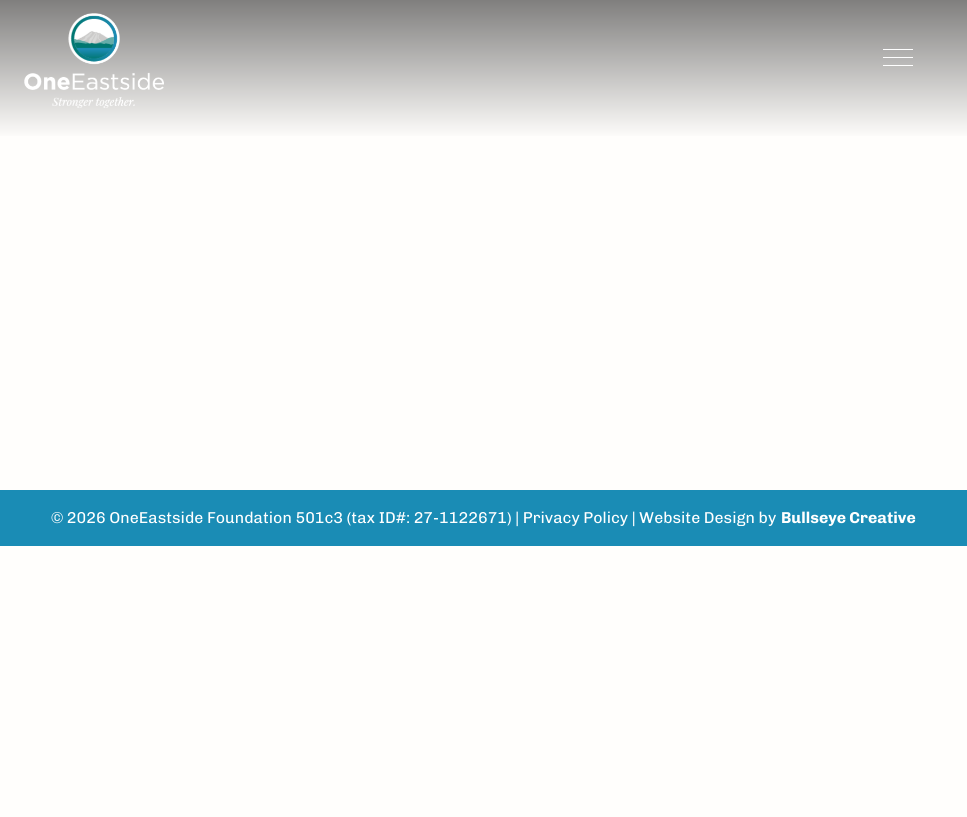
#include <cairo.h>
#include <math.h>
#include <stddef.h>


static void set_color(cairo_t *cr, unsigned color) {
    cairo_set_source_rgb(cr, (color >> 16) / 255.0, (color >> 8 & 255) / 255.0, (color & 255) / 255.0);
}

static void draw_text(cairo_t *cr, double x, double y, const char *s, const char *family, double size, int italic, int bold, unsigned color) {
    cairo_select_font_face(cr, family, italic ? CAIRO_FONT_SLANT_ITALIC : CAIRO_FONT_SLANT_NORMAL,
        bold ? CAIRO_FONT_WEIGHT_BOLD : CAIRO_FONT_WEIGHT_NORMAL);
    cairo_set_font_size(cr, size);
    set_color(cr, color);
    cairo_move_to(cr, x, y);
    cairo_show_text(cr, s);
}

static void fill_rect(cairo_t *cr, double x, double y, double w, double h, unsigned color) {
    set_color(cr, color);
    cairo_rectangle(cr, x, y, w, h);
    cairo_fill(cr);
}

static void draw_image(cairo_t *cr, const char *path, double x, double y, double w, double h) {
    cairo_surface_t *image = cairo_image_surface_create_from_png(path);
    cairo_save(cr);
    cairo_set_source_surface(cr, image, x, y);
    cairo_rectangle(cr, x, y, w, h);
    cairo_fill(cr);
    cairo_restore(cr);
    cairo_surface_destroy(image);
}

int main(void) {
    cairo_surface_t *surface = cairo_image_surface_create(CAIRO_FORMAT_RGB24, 967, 817);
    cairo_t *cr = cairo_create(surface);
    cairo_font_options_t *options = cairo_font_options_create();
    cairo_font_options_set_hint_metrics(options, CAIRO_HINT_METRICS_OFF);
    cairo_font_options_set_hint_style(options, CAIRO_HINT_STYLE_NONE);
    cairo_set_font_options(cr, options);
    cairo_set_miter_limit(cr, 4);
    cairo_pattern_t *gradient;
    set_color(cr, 0xFFFEFC);
    cairo_paint(cr);
    gradient = cairo_pattern_create_linear(484, 139, 484, 0);
    cairo_pattern_add_color_stop_rgba(gradient, 0, 1, 0.996, 0.988, 1);
    cairo_pattern_add_color_stop_rgba(gradient, 1, 0.502, 0.498, 0.494, 1);
    cairo_set_source(cr, gradient);
    cairo_pattern_destroy(gradient);
    cairo_rectangle(cr, 0, 0, 967, 136);
    cairo_fill(cr);
    draw_image(cr, "assets/img1.png", 24, 13, 140, 95);
    fill_rect(cr, 883, 49, 30, 1, 0xFFFFFF);
    fill_rect(cr, 883, 57, 30, 1, 0xFFFFFF);
    fill_rect(cr, 883, 65, 30, 1, 0xFFFFFF);
    fill_rect(cr, 0, 490, 967, 56, 0x1A8CB5);
    draw_text(cr, 51, 523, "© 2026 OneEastside Foundation 501c3 (tax ID#: 27-1122671) | Privacy Policy | Website Design by", "Chivo", 15.8, 0, 0, 0xFFFFFF);
    draw_text(cr, 781, 523, "Bullseye Creative", "Chivo", 15.8, 0, 1, 0xFFFFFF);
    cairo_surface_write_to_png(surface, "output.png");
    cairo_font_options_destroy(options);
    cairo_destroy(cr);
    cairo_surface_destroy(surface);
    return 0;
}
